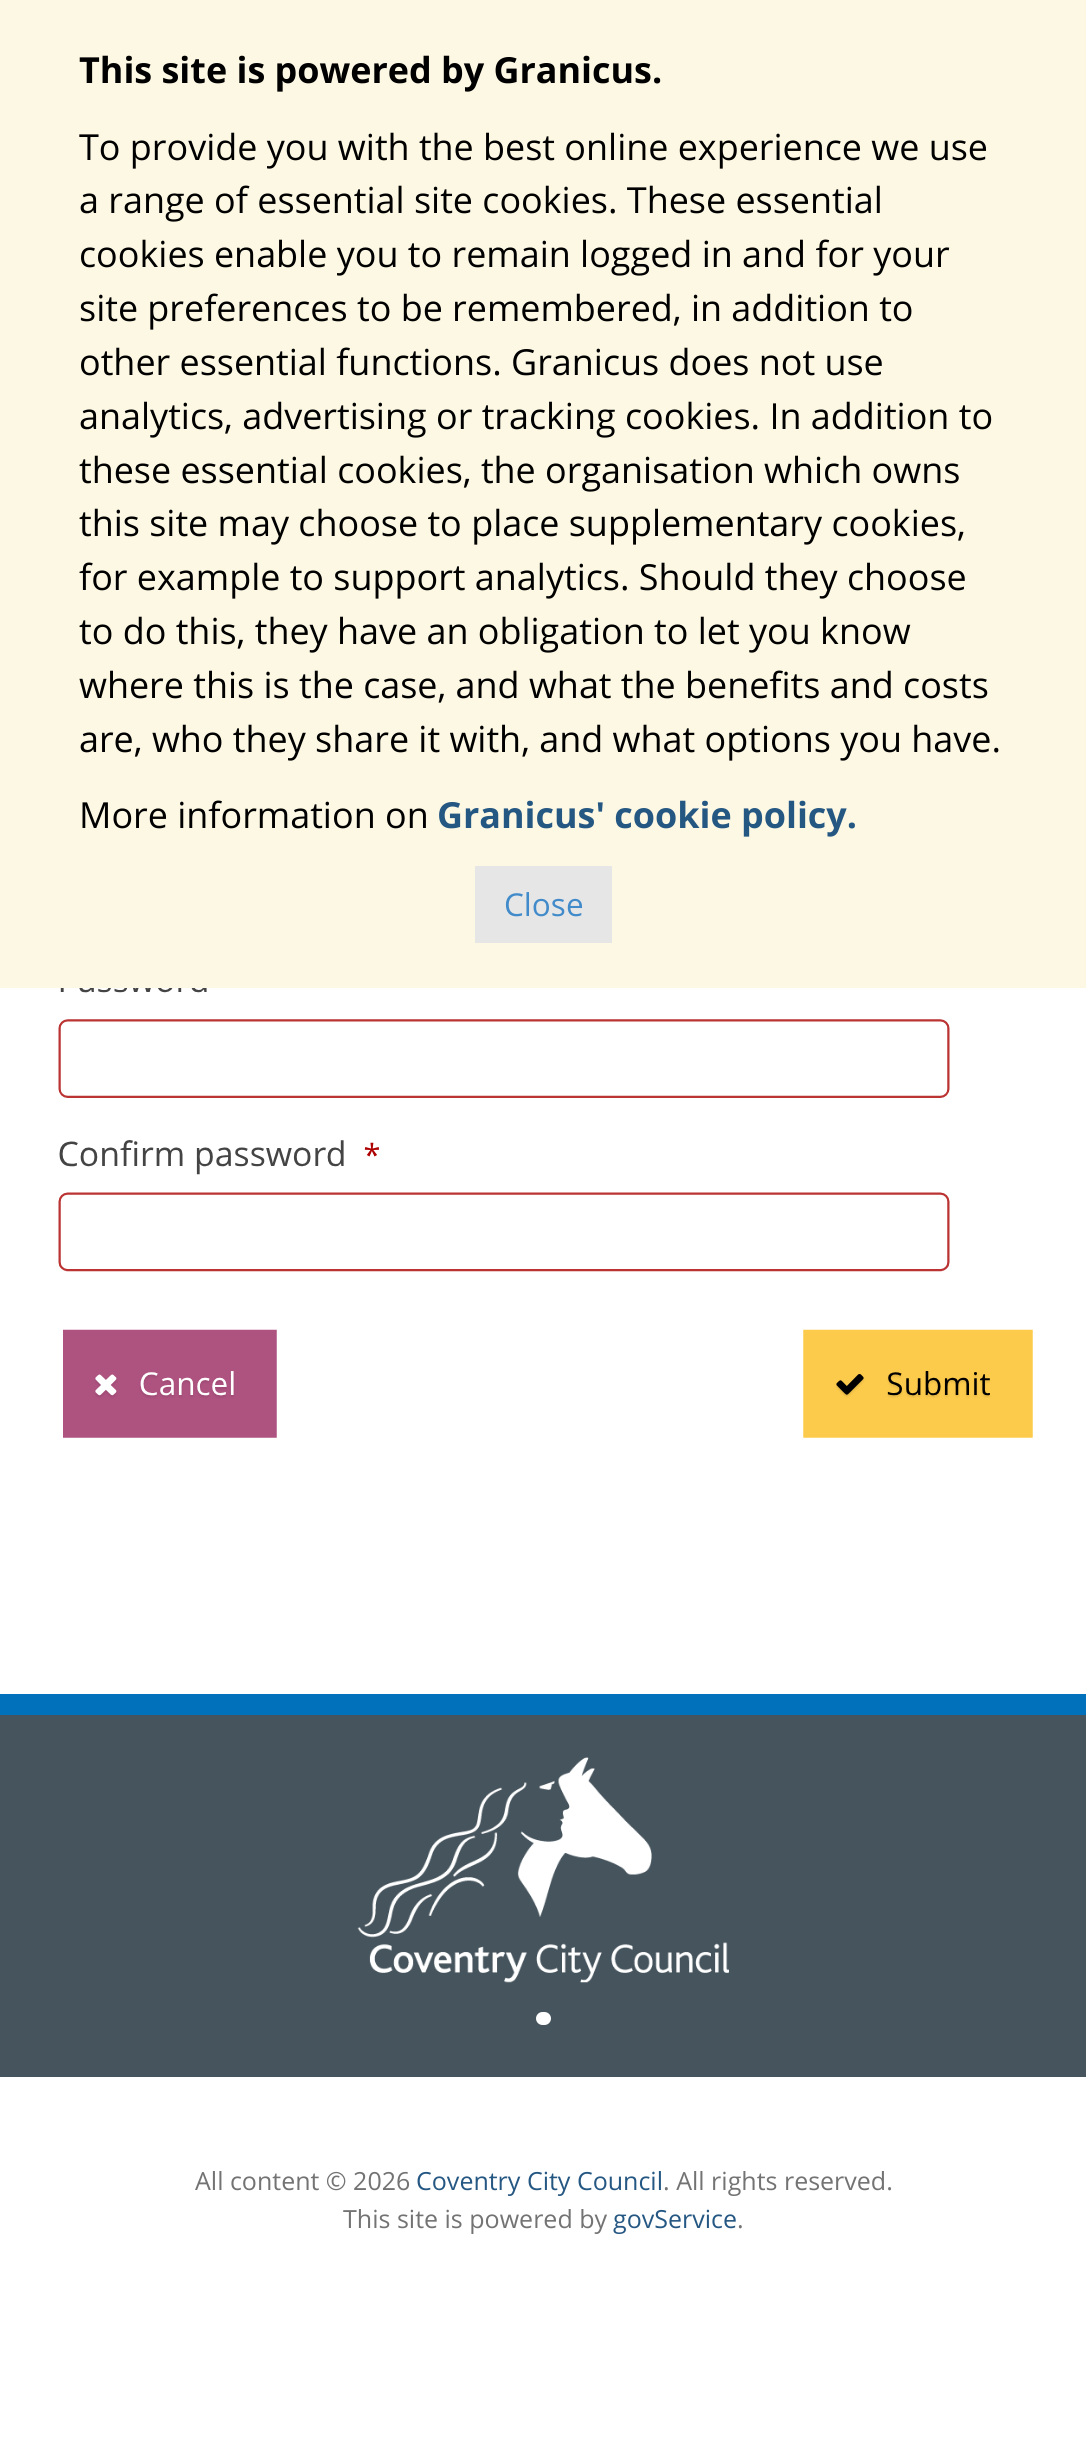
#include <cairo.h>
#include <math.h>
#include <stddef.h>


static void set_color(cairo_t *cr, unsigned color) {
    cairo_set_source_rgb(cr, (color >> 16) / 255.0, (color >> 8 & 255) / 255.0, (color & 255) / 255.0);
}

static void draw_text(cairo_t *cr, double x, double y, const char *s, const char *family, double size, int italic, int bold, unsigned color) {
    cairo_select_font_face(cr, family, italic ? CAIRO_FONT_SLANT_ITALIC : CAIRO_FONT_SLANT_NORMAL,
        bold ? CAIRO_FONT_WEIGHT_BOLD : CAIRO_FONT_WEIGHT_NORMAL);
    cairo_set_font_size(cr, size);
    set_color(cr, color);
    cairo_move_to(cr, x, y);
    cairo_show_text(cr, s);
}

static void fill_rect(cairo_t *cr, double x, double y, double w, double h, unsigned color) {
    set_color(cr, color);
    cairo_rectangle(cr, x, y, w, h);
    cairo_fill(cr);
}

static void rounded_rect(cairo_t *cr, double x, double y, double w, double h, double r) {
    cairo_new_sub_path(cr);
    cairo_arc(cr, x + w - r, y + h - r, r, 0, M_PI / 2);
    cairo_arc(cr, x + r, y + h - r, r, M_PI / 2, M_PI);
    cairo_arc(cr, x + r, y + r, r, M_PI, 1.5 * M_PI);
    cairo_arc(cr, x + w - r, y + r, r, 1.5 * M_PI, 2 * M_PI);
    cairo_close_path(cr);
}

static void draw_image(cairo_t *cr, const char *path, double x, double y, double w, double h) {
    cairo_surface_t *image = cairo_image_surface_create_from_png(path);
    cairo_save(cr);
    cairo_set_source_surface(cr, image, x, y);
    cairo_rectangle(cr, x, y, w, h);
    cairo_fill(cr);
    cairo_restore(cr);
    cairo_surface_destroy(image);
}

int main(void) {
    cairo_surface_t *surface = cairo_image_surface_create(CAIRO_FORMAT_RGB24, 1086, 2463);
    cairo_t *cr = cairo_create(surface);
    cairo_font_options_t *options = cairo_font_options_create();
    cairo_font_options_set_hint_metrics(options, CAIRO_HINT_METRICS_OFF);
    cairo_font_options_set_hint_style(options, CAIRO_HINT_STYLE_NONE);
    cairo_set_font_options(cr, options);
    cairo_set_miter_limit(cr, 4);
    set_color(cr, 0xFFFFFF);
    cairo_paint(cr);
    fill_rect(cr, 0, 0, 1086, 988, 0xFCF8E3);
    draw_text(cr, 79, 83, "This site is powered by Granicus.", "Open Sans", 35.9, 0, 1, 0x000000);
    draw_text(cr, 79, 160, "To provide you with the best online experience we use", "Open Sans", 35.9, 0, 0, 0x000000);
    draw_text(cr, 79, 213, "a range of essential site cookies. These essential", "Open Sans", 35.9, 0, 0, 0x000000);
    draw_text(cr, 79, 267, "cookies enable you to remain logged in and for your", "Open Sans", 35.9, 0, 0, 0x000000);
    draw_text(cr, 79, 321, "site preferences to be remembered, in addition to", "Open Sans", 35.9, 0, 0, 0x000000);
    draw_text(cr, 79, 375, "other essential functions. Granicus does not use", "Open Sans", 35.9, 0, 0, 0x000000);
    draw_text(cr, 79, 429, "analytics, advertising or tracking cookies. In addition to", "Open Sans", 35.9, 0, 0, 0x000000);
    draw_text(cr, 79, 483, "these essential cookies, the organisation which owns", "Open Sans", 35.9, 0, 0, 0x000000);
    draw_text(cr, 79, 536, "this site may choose to place supplementary cookies,", "Open Sans", 35.9, 0, 0, 0x000000);
    draw_text(cr, 79, 590, "for example to support analytics. Should they choose", "Open Sans", 35.9, 0, 0, 0x000000);
    draw_text(cr, 79, 644, "to do this, they have an obligation to let you know", "Open Sans", 35.9, 0, 0, 0x000000);
    draw_text(cr, 79, 698, "where this is the case, and what the benefits and costs", "Open Sans", 35.9, 0, 0, 0x000000);
    draw_text(cr, 79, 752, "are, who they share it with, and what options you have.", "Open Sans", 35.9, 0, 0, 0x000000);
    draw_text(cr, 79, 828, "More information on", "Open Sans", 35.9, 0, 0, 0x000000);
    draw_text(cr, 437, 828, "Granicus' cookie policy.", "Open Sans", 35.9, 0, 1, 0x255783);
    fill_rect(cr, 475, 866, 137, 77, 0xE6E6E6);
    draw_text(cr, 504, 916, "Close", "Open Sans", 31.5, 0, 0, 0x428BCA);
    draw_image(cr, "assets/img1.png", 55, 988, 978, 450);
    fill_rect(cr, 0, 1715, 1086, 362, 0x46545D);
    fill_rect(cr, 0, 1694, 1086, 21, 0x0071BA);
    draw_image(cr, "assets/img2.png", 357, 1757, 372, 226);
    set_color(cr, 0xFFFFFF);
    rounded_rect(cr, 536, 2012, 15, 13, 6.5);
    cairo_fill(cr);
    draw_text(cr, 195, 2190, "All content © 2026", "Open Sans", 25, 0, 0, 0x737373);
    draw_text(cr, 416, 2190, "Coventry City Council", "Open Sans", 25, 0, 0, 0x255783);
    draw_text(cr, 663, 2190, ". All rights reserved.", "Open Sans", 25, 0, 0, 0x737373);
    draw_text(cr, 343, 2228, "This site is powered by", "Open Sans", 25, 0, 0, 0x737373);
    draw_text(cr, 613, 2228, "govService", "Open Sans", 25, 0, 0, 0x255783);
    draw_text(cr, 737, 2228, ".", "Open Sans", 25, 0, 0, 0x737373);
    cairo_surface_write_to_png(surface, "output.png");
    cairo_font_options_destroy(options);
    cairo_destroy(cr);
    cairo_surface_destroy(surface);
    return 0;
}
